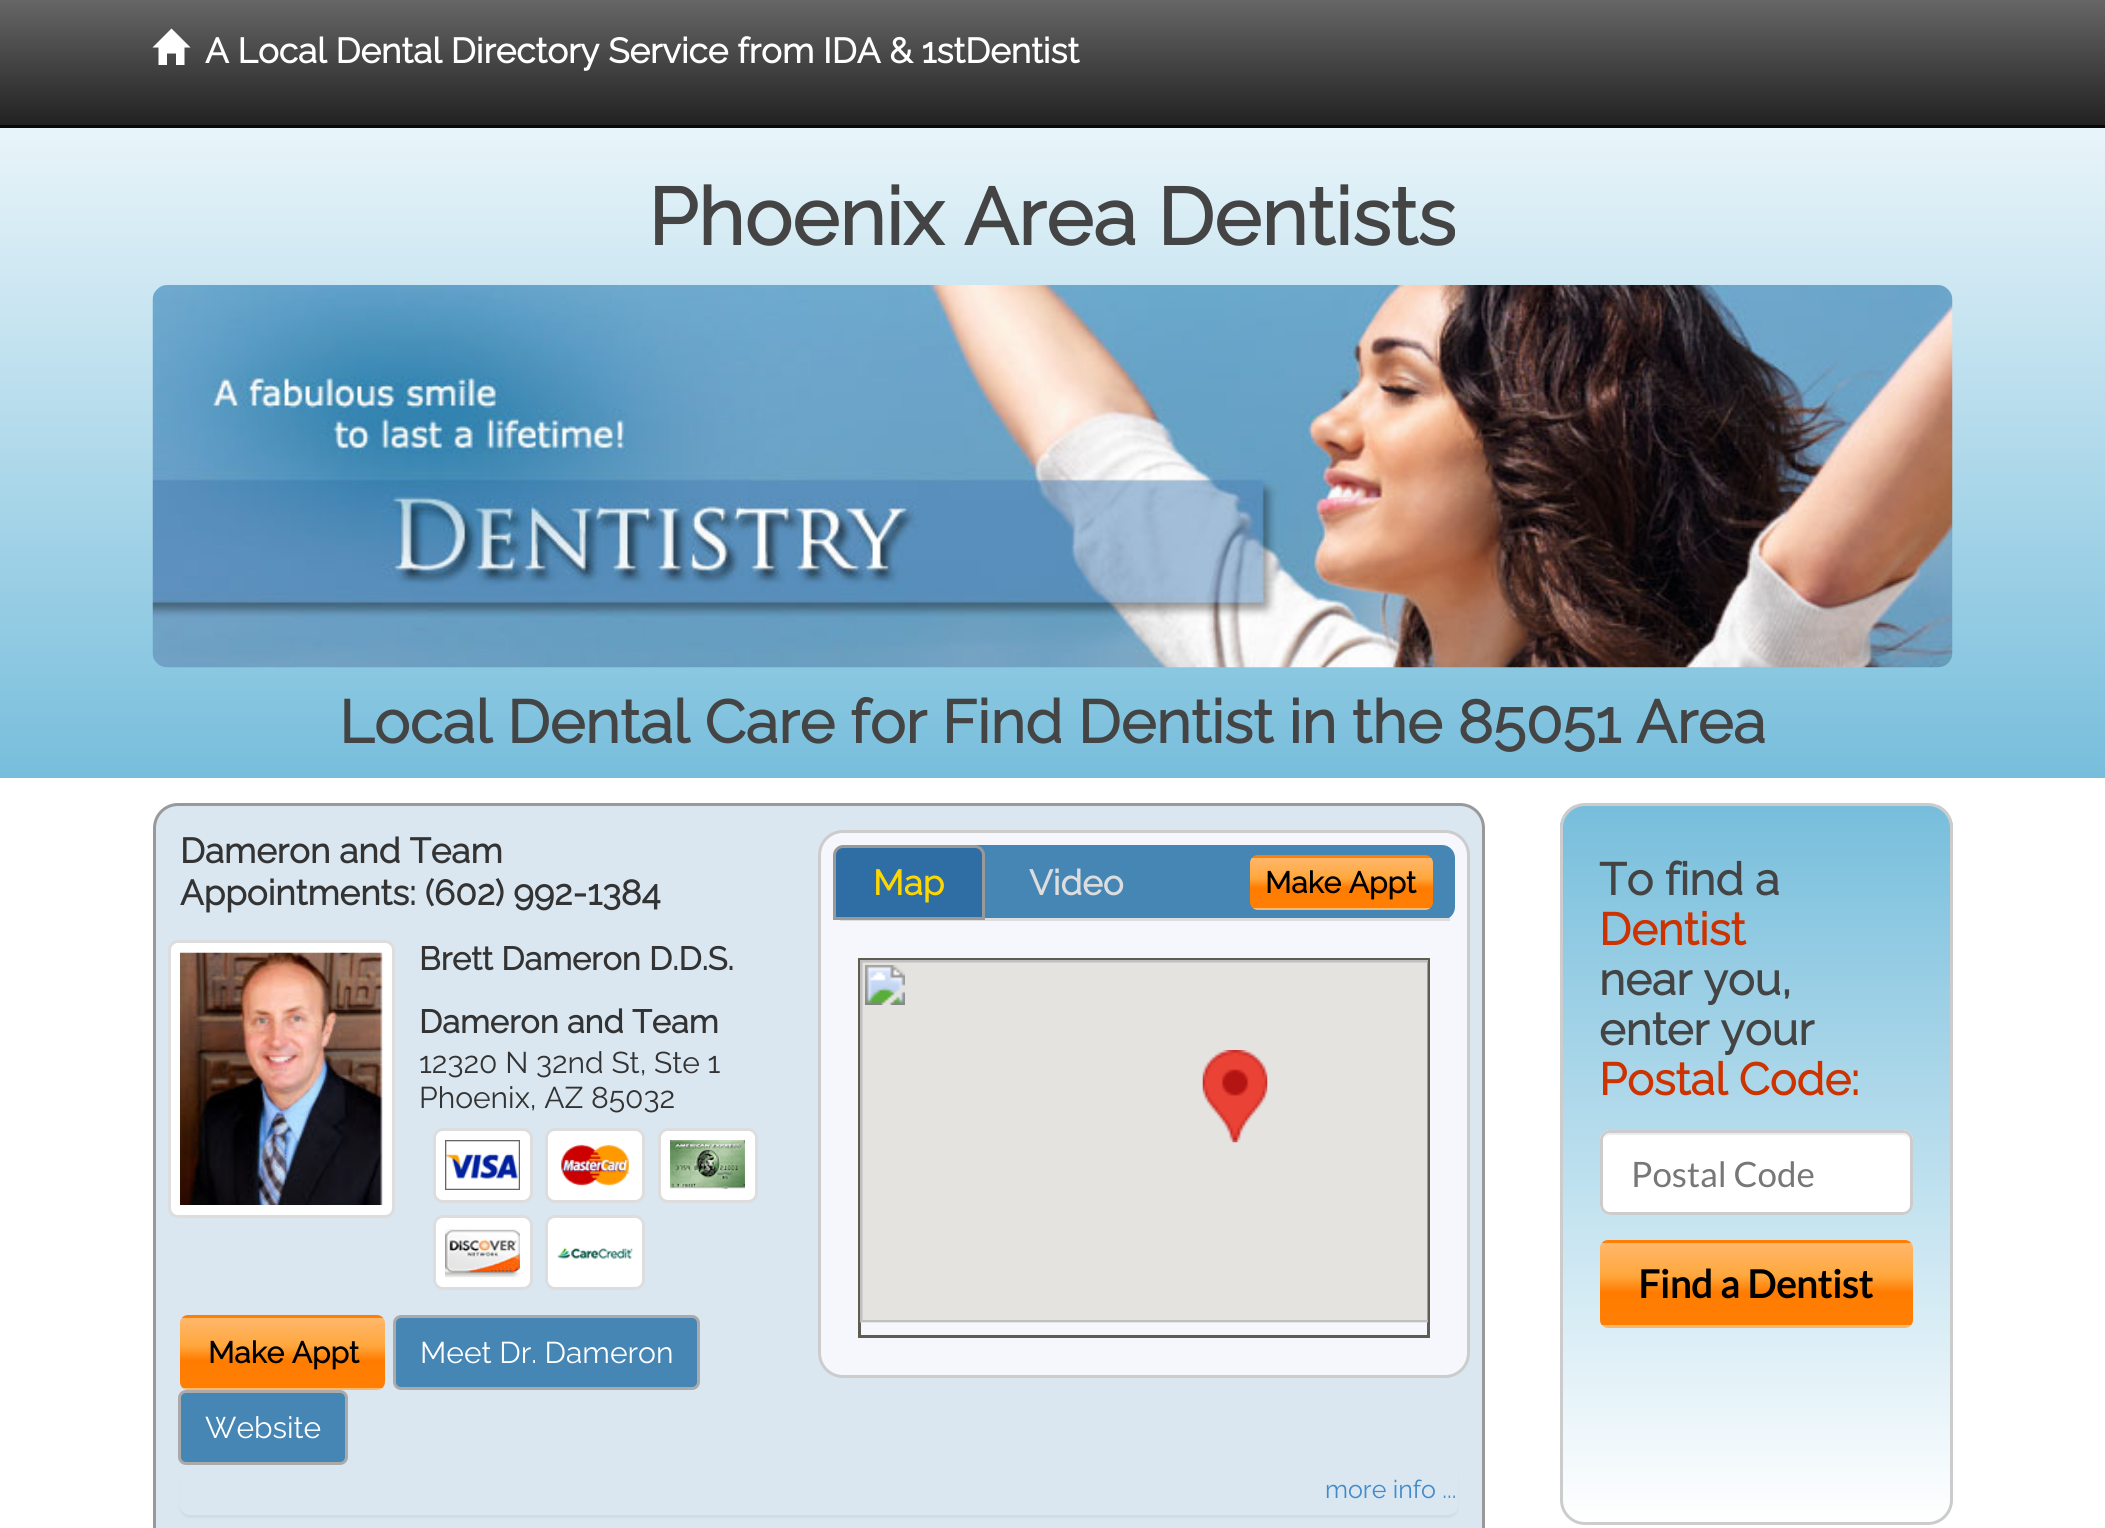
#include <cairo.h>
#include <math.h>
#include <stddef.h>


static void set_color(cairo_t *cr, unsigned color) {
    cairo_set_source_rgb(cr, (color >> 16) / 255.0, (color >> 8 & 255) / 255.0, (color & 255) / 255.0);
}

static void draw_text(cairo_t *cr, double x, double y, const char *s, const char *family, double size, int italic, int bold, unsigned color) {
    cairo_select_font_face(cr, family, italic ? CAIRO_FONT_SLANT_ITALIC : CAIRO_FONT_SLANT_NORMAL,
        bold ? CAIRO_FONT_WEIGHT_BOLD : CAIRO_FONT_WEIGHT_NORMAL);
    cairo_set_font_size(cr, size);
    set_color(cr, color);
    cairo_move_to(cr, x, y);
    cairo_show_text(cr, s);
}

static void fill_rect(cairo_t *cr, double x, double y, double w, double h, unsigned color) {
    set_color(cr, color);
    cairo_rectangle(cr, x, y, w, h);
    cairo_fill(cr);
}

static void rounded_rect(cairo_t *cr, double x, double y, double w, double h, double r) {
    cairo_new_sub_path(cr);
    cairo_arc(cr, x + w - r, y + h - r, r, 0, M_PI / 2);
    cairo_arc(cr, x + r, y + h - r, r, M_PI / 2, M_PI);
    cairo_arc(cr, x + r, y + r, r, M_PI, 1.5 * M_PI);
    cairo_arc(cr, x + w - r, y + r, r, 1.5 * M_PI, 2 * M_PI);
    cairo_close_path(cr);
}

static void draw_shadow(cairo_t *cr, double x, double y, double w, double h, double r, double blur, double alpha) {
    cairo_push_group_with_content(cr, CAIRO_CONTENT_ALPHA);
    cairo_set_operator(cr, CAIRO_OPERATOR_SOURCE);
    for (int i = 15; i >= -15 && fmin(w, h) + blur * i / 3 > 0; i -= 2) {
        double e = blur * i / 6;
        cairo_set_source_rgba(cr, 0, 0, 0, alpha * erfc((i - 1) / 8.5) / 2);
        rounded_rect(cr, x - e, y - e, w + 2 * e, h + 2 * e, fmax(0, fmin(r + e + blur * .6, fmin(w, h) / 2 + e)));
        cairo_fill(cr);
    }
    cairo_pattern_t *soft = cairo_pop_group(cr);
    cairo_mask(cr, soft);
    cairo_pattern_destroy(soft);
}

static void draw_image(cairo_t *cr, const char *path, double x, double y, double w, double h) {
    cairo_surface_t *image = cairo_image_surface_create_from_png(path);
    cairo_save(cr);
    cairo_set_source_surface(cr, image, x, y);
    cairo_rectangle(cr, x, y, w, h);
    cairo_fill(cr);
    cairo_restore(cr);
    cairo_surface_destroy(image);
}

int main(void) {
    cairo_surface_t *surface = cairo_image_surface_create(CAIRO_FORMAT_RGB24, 2105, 1528);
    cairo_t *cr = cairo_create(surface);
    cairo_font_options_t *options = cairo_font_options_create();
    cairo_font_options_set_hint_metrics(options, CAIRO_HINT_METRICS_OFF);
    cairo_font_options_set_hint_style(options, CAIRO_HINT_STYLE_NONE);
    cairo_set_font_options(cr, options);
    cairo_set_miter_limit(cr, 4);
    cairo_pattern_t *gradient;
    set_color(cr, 0xFFFFFF);
    cairo_paint(cr);
    gradient = cairo_pattern_create_linear(1053, 0, 1053, 125);
    cairo_pattern_add_color_stop_rgba(gradient, 0, 0.4, 0.4, 0.4, 1);
    cairo_pattern_add_color_stop_rgba(gradient, 1, 0.133, 0.133, 0.133, 1);
    cairo_set_source(cr, gradient);
    cairo_pattern_destroy(gradient);
    cairo_rectangle(cr, 0, 0, 2105, 125);
    cairo_fill(cr);
    fill_rect(cr, 0, 125, 2105, 3, 0x080808);
    set_color(cr, 0xFFFFFF);
    cairo_new_path(cr);
    cairo_move_to(cr, 152.5, 47.5);
    cairo_line_to(cr, 171.5, 28.5);
    cairo_line_to(cr, 190.5, 47.5);
    cairo_line_to(cr, 184.5, 47.5);
    cairo_line_to(cr, 184.5, 65);
    cairo_line_to(cr, 176, 65);
    cairo_line_to(cr, 176, 53.5);
    cairo_line_to(cr, 167, 53.5);
    cairo_line_to(cr, 167, 65);
    cairo_line_to(cr, 158.5, 65);
    cairo_line_to(cr, 158.5, 47.5);
    cairo_close_path(cr);
    cairo_fill(cr);
    draw_text(cr, 205, 63, "A Local Dental Directory Service from IDA & 1stDentist", "Raleway", 35, 0, 1, 0xFFFFFF);
    gradient = cairo_pattern_create_linear(1053, 0, 1053, 778);
    cairo_pattern_add_color_stop_rgba(gradient, 0, 1, 1, 1, 1);
    cairo_pattern_add_color_stop_rgba(gradient, 1, 0.467, 0.745, 0.863, 1);
    cairo_set_source(cr, gradient);
    cairo_pattern_destroy(gradient);
    cairo_rectangle(cr, 0, 128, 2105, 650);
    cairo_fill(cr);
    draw_text(cr, 648, 245, "Phoenix Area Dentists", "Raleway", 80, 0, 1, 0x444444);
    draw_image(cr, "assets/img1.png", 152, 285, 1801, 383);
    draw_text(cr, 339, 743, "Local Dental Care for Find Dentist in the 85051 Area", "Raleway", 60, 0, 1, 0x444444);
    set_color(cr, 0xDAE7F0);
    rounded_rect(cr, 154.5, 804.5, 1329, 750, 23.5);
    cairo_fill_preserve(cr);
    set_color(cr, 0x999999);
    cairo_set_line_width(cr, 3);
    cairo_stroke(cr);
    draw_text(cr, 180, 863, "Dameron and Team", "Raleway", 35, 0, 1, 0x333333);
    draw_text(cr, 180, 905, "Appointments: (602) 992-1384", "Raleway", 35, 0, 1, 0x333333);
    set_color(cr, 0xFFFFFF);
    rounded_rect(cr, 169.5, 941.5, 224, 275, 8.5);
    cairo_fill_preserve(cr);
    set_color(cr, 0xDDDDDD);
    cairo_stroke(cr);
    draw_image(cr, "assets/img2.png", 180, 952, 203, 253);
    draw_text(cr, 419, 970, "Brett Dameron D.D.S.", "Raleway", 32.5, 0, 1, 0x333333);
    draw_text(cr, 419, 1033, "Dameron and Team", "Raleway", 32.5, 0, 1, 0x333333);
    draw_text(cr, 419, 1073, "12320 N 32nd St, Ste 1", "Raleway Thin", 30, 0, 0, 0x333333);
    draw_text(cr, 419, 1108, "Phoenix, AZ 85032", "Raleway Thin", 30, 0, 0, 0x333333);
    set_color(cr, 0xFFFFFF);
    rounded_rect(cr, 434.5, 1129.5, 97, 72, 8.5);
    cairo_fill_preserve(cr);
    set_color(cr, 0xDDDDDD);
    cairo_stroke(cr);
    draw_image(cr, "assets/img3.png", 445, 1140, 75, 50);
    set_color(cr, 0xFFFFFF);
    rounded_rect(cr, 546.5, 1129.5, 97, 72, 8.5);
    cairo_fill_preserve(cr);
    set_color(cr, 0xDDDDDD);
    cairo_stroke(cr);
    draw_image(cr, "assets/img4.png", 561, 1144, 68, 42);
    set_color(cr, 0xFFFFFF);
    rounded_rect(cr, 659.5, 1129.5, 97, 72, 8.5);
    cairo_fill_preserve(cr);
    set_color(cr, 0xDDDDDD);
    cairo_stroke(cr);
    draw_image(cr, "assets/img5.png", 670, 1140, 75, 50);
    set_color(cr, 0xFFFFFF);
    rounded_rect(cr, 434.5, 1216.5, 97, 72, 8.5);
    cairo_fill_preserve(cr);
    set_color(cr, 0xDDDDDD);
    cairo_stroke(cr);
    draw_image(cr, "assets/img6.png", 445, 1229, 75, 49);
    set_color(cr, 0xFFFFFF);
    rounded_rect(cr, 546.5, 1216.5, 97, 72, 8.5);
    cairo_fill_preserve(cr);
    set_color(cr, 0xDDDDDD);
    cairo_stroke(cr);
    draw_image(cr, "assets/img7.png", 557, 1247, 76, 12);
    cairo_save(cr);
    rounded_rect(cr, 180, 1315, 205, 75, 8);
    cairo_clip(cr);
    gradient = cairo_pattern_create_linear(283, 1248, 283, 1318);
    cairo_pattern_add_color_stop_rgba(gradient, 0, 1, 0.718, 0.42, 1);
    cairo_pattern_add_color_stop_rgba(gradient, 0.4, 1, 0.655, 0.239, 1);
    cairo_pattern_add_color_stop_rgba(gradient, 0.6, 1, 0.486, 0, 1);
    cairo_pattern_add_color_stop_rgba(gradient, 1, 1, 0.498, 0.016, 1);
    cairo_set_source(cr, gradient);
    cairo_pattern_destroy(gradient);
    cairo_rectangle(cr, 180, 1315, 205, 3);
    cairo_fill(cr);
    gradient = cairo_pattern_create_linear(283, 1318, 283, 1388);
    cairo_pattern_add_color_stop_rgba(gradient, 0, 1, 0.718, 0.42, 1);
    cairo_pattern_add_color_stop_rgba(gradient, 0.4, 1, 0.655, 0.239, 1);
    cairo_pattern_add_color_stop_rgba(gradient, 0.6, 1, 0.486, 0, 1);
    cairo_pattern_add_color_stop_rgba(gradient, 1, 1, 0.498, 0.016, 1);
    cairo_set_source(cr, gradient);
    cairo_pattern_destroy(gradient);
    cairo_rectangle(cr, 180, 1318, 205, 70);
    cairo_fill(cr);
    gradient = cairo_pattern_create_linear(283, 1388, 283, 1458);
    cairo_pattern_add_color_stop_rgba(gradient, 0, 1, 0.718, 0.42, 1);
    cairo_pattern_add_color_stop_rgba(gradient, 0.4, 1, 0.655, 0.239, 1);
    cairo_pattern_add_color_stop_rgba(gradient, 0.6, 1, 0.486, 0, 1);
    cairo_pattern_add_color_stop_rgba(gradient, 1, 1, 0.498, 0.016, 1);
    cairo_set_source(cr, gradient);
    cairo_pattern_destroy(gradient);
    cairo_rectangle(cr, 180, 1388, 205, 2);
    cairo_fill(cr);
    cairo_restore(cr);
    draw_text(cr, 208, 1363, "Make Appt", "Raleway", 30, 0, 1, 0x000000);
    set_color(cr, 0x4586B5);
    rounded_rect(cr, 394.5, 1316.5, 304, 72, 6.5);
    cairo_fill_preserve(cr);
    set_color(cr, 0xAAAAAA);
    cairo_stroke(cr);
    draw_text(cr, 420, 1363, "Meet Dr. Dameron", "Raleway Thin", 30, 0, 0, 0xFFFFFF);
    set_color(cr, 0x4586B5);
    rounded_rect(cr, 179.5, 1391.5, 167, 72, 6.5);
    cairo_fill_preserve(cr);
    set_color(cr, 0xAAAAAA);
    cairo_stroke(cr);
    draw_text(cr, 205, 1438, "Website", "Raleway Thin", 30, 0, 0, 0xFFFFFF);
    set_color(cr, 0xF6F6FD);
    rounded_rect(cr, 819.5, 831.5, 649, 545, 23.5);
    cairo_fill_preserve(cr);
    set_color(cr, 0xCCCCCC);
    cairo_stroke(cr);
    set_color(cr, 0x4586B5);
    rounded_rect(cr, 833, 845, 622, 75, 13);
    cairo_fill(cr);
    fill_rect(cr, 840, 918, 610, 3, 0xDDDDDD);
    set_color(cr, 0x2F6EA5);
    cairo_new_path(cr);
    cairo_move_to(cr, 843, 846.5);
    cairo_line_to(cr, 975, 846.5);
    cairo_curve_to(cr, 979.5, 846.5, 983.5, 850.5, 983.5, 855);
    cairo_line_to(cr, 983.5, 918.5);
    cairo_line_to(cr, 834.5, 918.5);
    cairo_line_to(cr, 834.5, 855);
    cairo_curve_to(cr, 834.5, 850.5, 838.5, 846.5, 843, 846.5);
    cairo_close_path(cr);
    cairo_fill_preserve(cr);
    set_color(cr, 0x999999);
    cairo_stroke(cr);
    draw_text(cr, 873, 895, "Map", "Raleway", 35, 0, 1, 0xFFD700);
    draw_text(cr, 1029, 895, "Video", "Raleway", 35, 0, 1, 0xDDDDDD);
    cairo_rectangle(cr, 859.5, 959.5, 569, 377);
    set_color(cr, 0x5F5C52);
    cairo_stroke(cr);
    draw_image(cr, "assets/img8.png", 860, 960, 568, 363);
    cairo_save(cr);
    rounded_rect(cr, 1250, 855, 183, 55, 8);
    cairo_clip(cr);
    gradient = cairo_pattern_create_linear(1341, 808, 1341, 858);
    cairo_pattern_add_color_stop_rgba(gradient, 0, 1, 0.718, 0.42, 1);
    cairo_pattern_add_color_stop_rgba(gradient, 0.4, 1, 0.655, 0.239, 1);
    cairo_pattern_add_color_stop_rgba(gradient, 0.6, 1, 0.486, 0, 1);
    cairo_pattern_add_color_stop_rgba(gradient, 1, 1, 0.498, 0.016, 1);
    cairo_set_source(cr, gradient);
    cairo_pattern_destroy(gradient);
    cairo_rectangle(cr, 1250, 855, 183, 3);
    cairo_fill(cr);
    gradient = cairo_pattern_create_linear(1341, 858, 1341, 908);
    cairo_pattern_add_color_stop_rgba(gradient, 0, 1, 0.718, 0.42, 1);
    cairo_pattern_add_color_stop_rgba(gradient, 0.4, 1, 0.655, 0.239, 1);
    cairo_pattern_add_color_stop_rgba(gradient, 0.6, 1, 0.486, 0, 1);
    cairo_pattern_add_color_stop_rgba(gradient, 1, 1, 0.498, 0.016, 1);
    cairo_set_source(cr, gradient);
    cairo_pattern_destroy(gradient);
    cairo_rectangle(cr, 1250, 858, 183, 50);
    cairo_fill(cr);
    gradient = cairo_pattern_create_linear(1341, 908, 1341, 958);
    cairo_pattern_add_color_stop_rgba(gradient, 0, 1, 0.718, 0.42, 1);
    cairo_pattern_add_color_stop_rgba(gradient, 0.4, 1, 0.655, 0.239, 1);
    cairo_pattern_add_color_stop_rgba(gradient, 0.6, 1, 0.486, 0, 1);
    cairo_pattern_add_color_stop_rgba(gradient, 1, 1, 0.498, 0.016, 1);
    cairo_set_source(cr, gradient);
    cairo_pattern_destroy(gradient);
    cairo_rectangle(cr, 1250, 908, 183, 2);
    cairo_fill(cr);
    cairo_restore(cr);
    draw_text(cr, 1265, 893, "Make Appt", "Raleway", 30, 0, 1, 0x000000);
    cairo_save(cr);
    cairo_set_fill_rule(cr, CAIRO_FILL_RULE_EVEN_ODD);
    cairo_new_path(cr);
    cairo_move_to(cr, 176, 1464);
    cairo_line_to(cr, 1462, 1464);
    cairo_line_to(cr, 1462, 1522);
    cairo_line_to(cr, 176, 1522);
    cairo_close_path(cr);
    cairo_move_to(cr, 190, 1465);
    cairo_line_to(cr, 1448, 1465);
    cairo_curve_to(cr, 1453.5, 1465, 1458, 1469.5, 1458, 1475);
    cairo_line_to(cr, 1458, 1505);
    cairo_curve_to(cr, 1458, 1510.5, 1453.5, 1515, 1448, 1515);
    cairo_line_to(cr, 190, 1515);
    cairo_curve_to(cr, 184.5, 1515, 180, 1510.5, 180, 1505);
    cairo_line_to(cr, 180, 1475);
    cairo_curve_to(cr, 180, 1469.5, 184.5, 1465, 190, 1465);
    cairo_close_path(cr);
    cairo_clip(cr);
    set_color(cr, 0x000000);
    draw_shadow(cr, 180, 1468, 1278, 50, 10, 1, 0.05);
    cairo_restore(cr);
    draw_text(cr, 1325, 1498, "more info ...", "Raleway Thin", 25, 0, 0, 0x428BCA);
    cairo_save(cr);
    rounded_rect(cr, 1560, 803, 393, 722, 25);
    cairo_clip(cr);
    gradient = cairo_pattern_create_linear(1756, 805, 1756, 1523);
    cairo_pattern_add_color_stop_rgba(gradient, 0, 0.467, 0.745, 0.863, 1);
    cairo_pattern_add_color_stop_rgba(gradient, 1, 1, 1, 1, 1);
    cairo_set_source(cr, gradient);
    cairo_pattern_destroy(gradient);
    cairo_rectangle(cr, 1560, 805, 393, 718);
    cairo_fill(cr);
    cairo_restore(cr);
    rounded_rect(cr, 1561.5, 804.5, 390, 719, 23.5);
    set_color(cr, 0xCCCCCC);
    cairo_stroke(cr);
    draw_text(cr, 1599, 895, "To find a", "Raleway", 45, 0, 1, 0x444444);
    draw_text(cr, 1599, 945, "Dentist", "Raleway", 45, 0, 1, 0xCC3300);
    draw_text(cr, 1599, 995, "near you,", "Raleway", 45, 0, 1, 0x444444);
    draw_text(cr, 1599, 1045, "enter your", "Raleway", 45, 0, 1, 0x444444);
    draw_text(cr, 1599, 1095, "Postal Code:", "Raleway", 45, 0, 1, 0xCC3300);
    set_color(cr, 0xFFFFFF);
    rounded_rect(cr, 1600, 1130, 313, 85, 10);
    cairo_fill(cr);
    set_color(cr, 0xECECEC);
    cairo_new_path(cr);
    cairo_move_to(cr, 1610, 1135);
    cairo_line_to(cr, 1902, 1135);
    cairo_curve_to(cr, 1907, 1135, 1910, 1138, 1910, 1142);
    cairo_line_to(cr, 1910, 1141);
    cairo_curve_to(cr, 1910, 1137, 1906, 1133, 1902, 1133);
    cairo_line_to(cr, 1611, 1133);
    cairo_curve_to(cr, 1608, 1133, 1605, 1135, 1604, 1138);
    cairo_curve_to(cr, 1605, 1136, 1608, 1135, 1610, 1135);
    cairo_close_path(cr);
    cairo_fill(cr);
    rounded_rect(cr, 1601.5, 1131.5, 310, 82, 8.5);
    set_color(cr, 0xCCCCCC);
    cairo_stroke(cr);
    draw_text(cr, 1631, 1187, "Postal Code", "Lato", 35, 0, 0, 0x777777);
    cairo_save(cr);
    rounded_rect(cr, 1600, 1240, 313, 88, 8);
    cairo_clip(cr);
    gradient = cairo_pattern_create_linear(1756, 1160, 1756, 1243);
    cairo_pattern_add_color_stop_rgba(gradient, 0, 1, 0.718, 0.42, 1);
    cairo_pattern_add_color_stop_rgba(gradient, 0.4, 1, 0.655, 0.239, 1);
    cairo_pattern_add_color_stop_rgba(gradient, 0.6, 1, 0.486, 0, 1);
    cairo_pattern_add_color_stop_rgba(gradient, 1, 1, 0.498, 0.016, 1);
    cairo_set_source(cr, gradient);
    cairo_pattern_destroy(gradient);
    cairo_rectangle(cr, 1600, 1240, 313, 3);
    cairo_fill(cr);
    gradient = cairo_pattern_create_linear(1756, 1243, 1756, 1325);
    cairo_pattern_add_color_stop_rgba(gradient, 0, 1, 0.718, 0.42, 1);
    cairo_pattern_add_color_stop_rgba(gradient, 0.4, 1, 0.655, 0.239, 1);
    cairo_pattern_add_color_stop_rgba(gradient, 0.6, 1, 0.486, 0, 1);
    cairo_pattern_add_color_stop_rgba(gradient, 1, 1, 0.498, 0.016, 1);
    cairo_set_source(cr, gradient);
    cairo_pattern_destroy(gradient);
    cairo_rectangle(cr, 1600, 1243, 313, 82);
    cairo_fill(cr);
    gradient = cairo_pattern_create_linear(1756, 1325, 1756, 1408);
    cairo_pattern_add_color_stop_rgba(gradient, 0, 1, 0.718, 0.42, 1);
    cairo_pattern_add_color_stop_rgba(gradient, 0.4, 1, 0.655, 0.239, 1);
    cairo_pattern_add_color_stop_rgba(gradient, 0.6, 1, 0.486, 0, 1);
    cairo_pattern_add_color_stop_rgba(gradient, 1, 1, 0.498, 0.016, 1);
    cairo_set_source(cr, gradient);
    cairo_pattern_destroy(gradient);
    cairo_rectangle(cr, 1600, 1325, 313, 3);
    cairo_fill(cr);
    cairo_restore(cr);
    draw_text(cr, 1638, 1298, "Find a Dentist", "Lato", 38.5, 0, 1, 0x000000);
    cairo_surface_write_to_png(surface, "output.png");
    cairo_font_options_destroy(options);
    cairo_destroy(cr);
    cairo_surface_destroy(surface);
    return 0;
}
